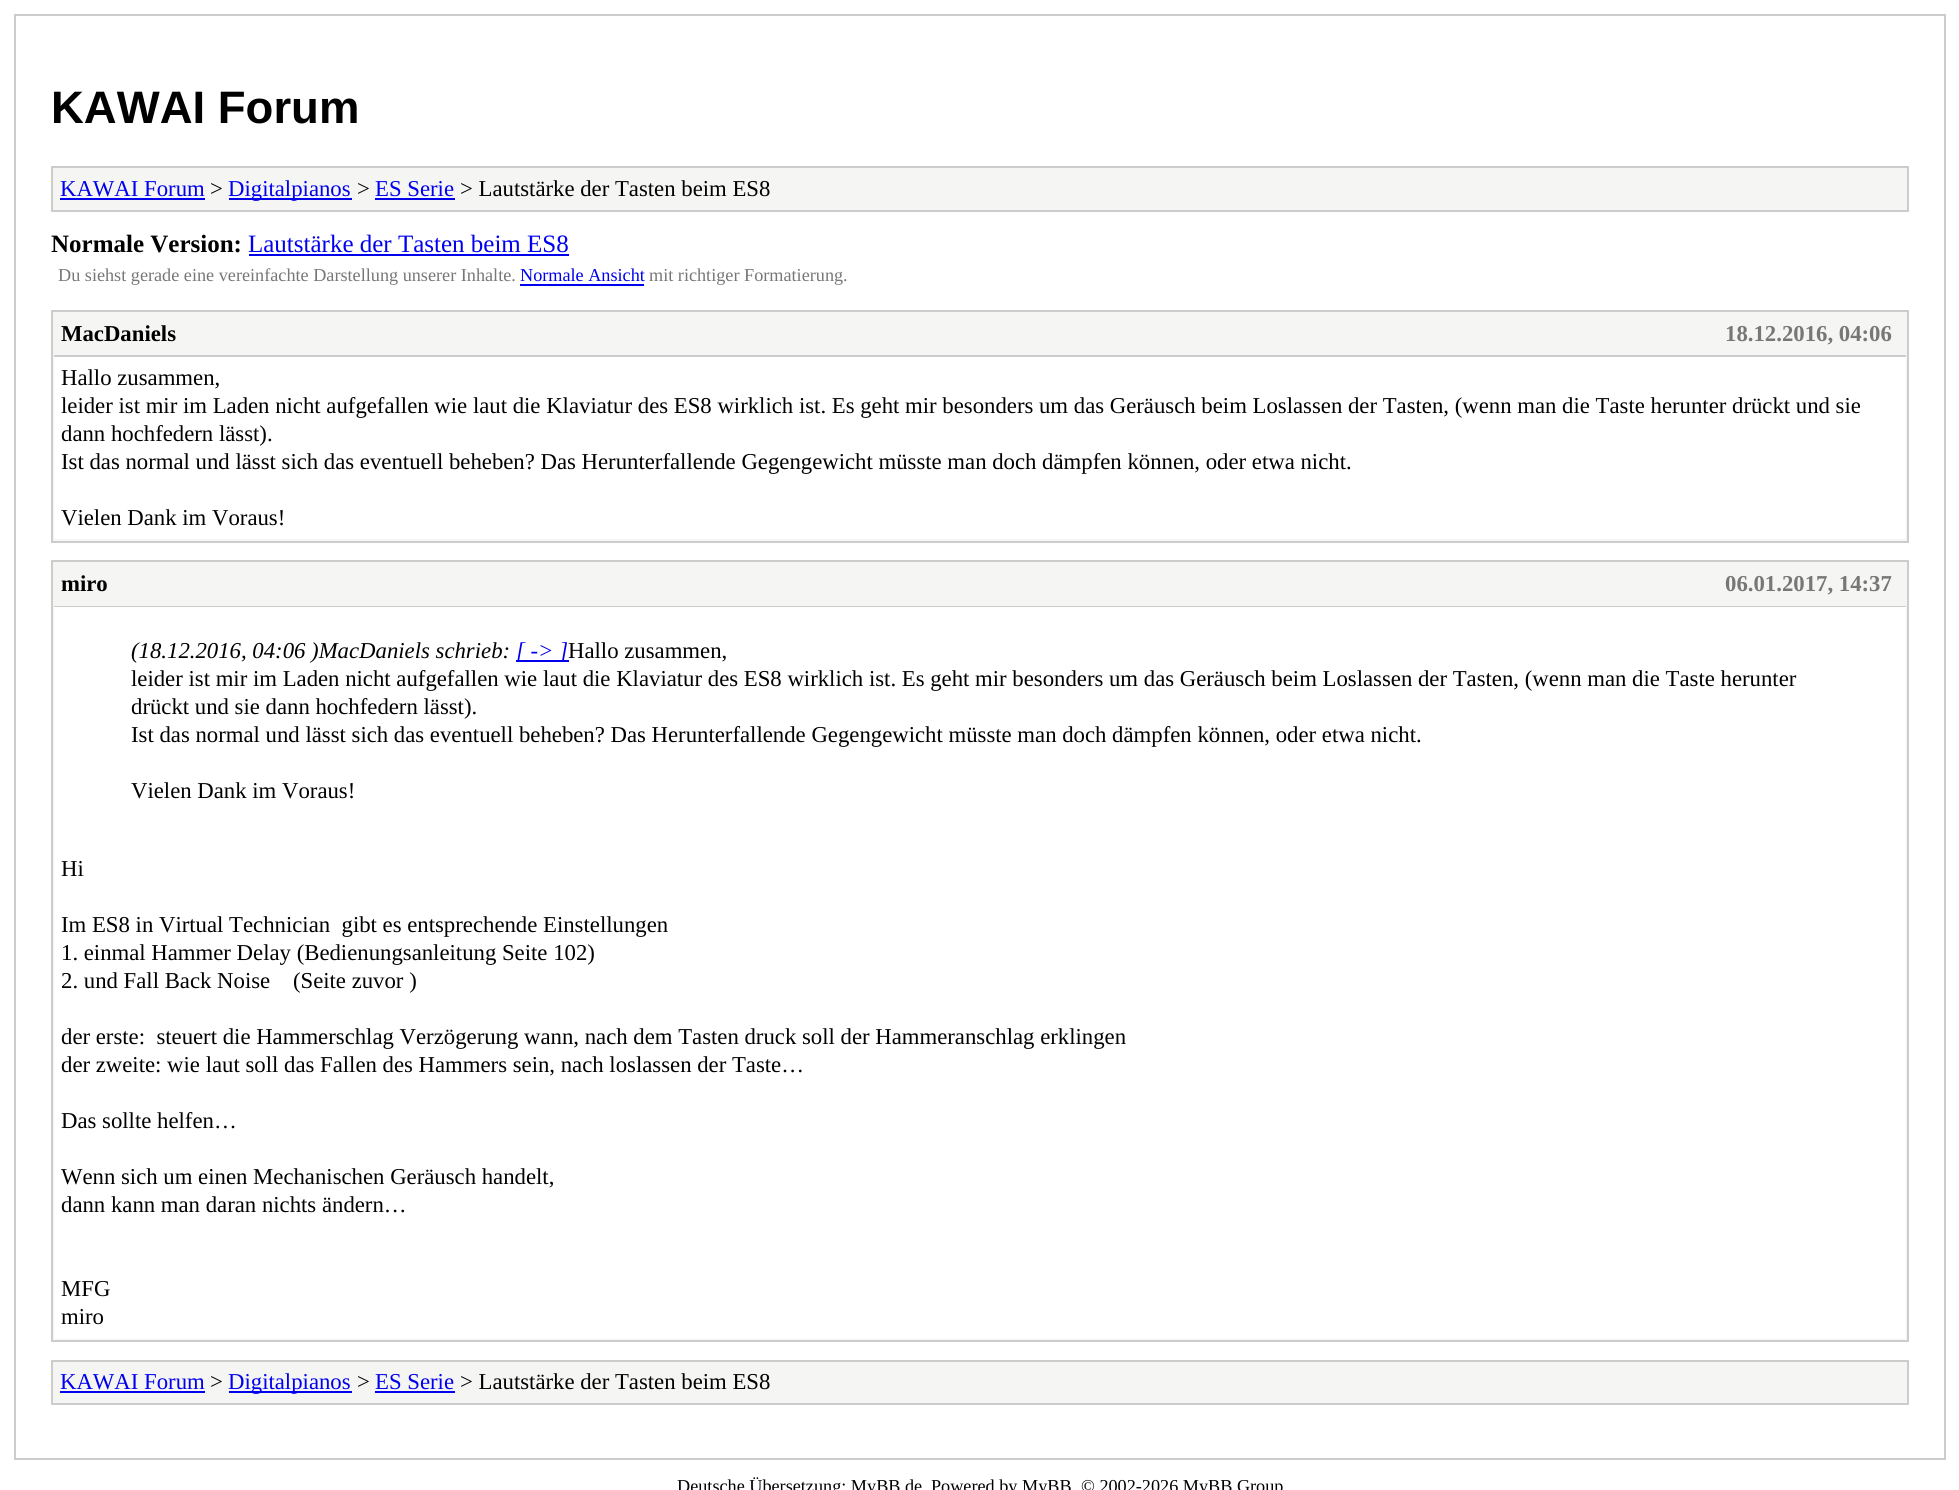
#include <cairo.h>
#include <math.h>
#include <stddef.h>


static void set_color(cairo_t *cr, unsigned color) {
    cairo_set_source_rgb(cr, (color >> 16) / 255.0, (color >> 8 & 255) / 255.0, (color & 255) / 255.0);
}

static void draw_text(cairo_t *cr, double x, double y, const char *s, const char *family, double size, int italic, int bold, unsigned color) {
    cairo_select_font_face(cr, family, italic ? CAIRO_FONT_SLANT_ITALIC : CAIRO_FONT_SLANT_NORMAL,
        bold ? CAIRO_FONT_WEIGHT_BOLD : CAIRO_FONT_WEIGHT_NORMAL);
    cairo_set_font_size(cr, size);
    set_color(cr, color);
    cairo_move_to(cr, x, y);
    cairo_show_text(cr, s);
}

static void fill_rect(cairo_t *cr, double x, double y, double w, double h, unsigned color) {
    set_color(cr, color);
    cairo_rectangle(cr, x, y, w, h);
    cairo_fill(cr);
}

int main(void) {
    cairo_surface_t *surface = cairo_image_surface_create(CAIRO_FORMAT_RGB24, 1959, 1490);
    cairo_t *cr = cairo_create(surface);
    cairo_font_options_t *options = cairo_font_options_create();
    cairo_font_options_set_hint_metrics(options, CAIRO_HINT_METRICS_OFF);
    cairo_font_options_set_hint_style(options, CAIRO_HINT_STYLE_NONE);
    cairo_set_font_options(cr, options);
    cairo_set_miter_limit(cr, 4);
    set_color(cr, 0xFFFFFF);
    cairo_paint(cr);
    cairo_rectangle(cr, 15, 15, 1930, 1444);
    set_color(cr, 0xCCCCCC);
    cairo_stroke(cr);
    draw_text(cr, 51, 123, "KAWAI Forum", "Liberation Sans", 45.5, 0, 1, 0x000000);
    set_color(cr, 0xF5F5F4);
    cairo_rectangle(cr, 52, 167, 1856, 44);
    cairo_fill_preserve(cr);
    set_color(cr, 0xCCCCCC);
    cairo_stroke(cr);
    draw_text(cr, 60, 196, "KAWAI Forum", "Liberation Serif", 22.75, 0, 0, 0x0000EE);
    fill_rect(cr, 60, 198, 145, 2, 0x0000EE);
    draw_text(cr, 210, 196, ">", "Liberation Serif", 22.75, 0, 0, 0x000000);
    fill_rect(cr, 229, 198, 123, 2, 0x0000EE);
    draw_text(cr, 228, 196, "Digitalpianos", "Liberation Serif", 22.75, 0, 0, 0x0000EE);
    draw_text(cr, 357, 196, ">", "Liberation Serif", 22.75, 0, 0, 0x000000);
    draw_text(cr, 375, 196, "ES Serie", "Liberation Serif", 22.75, 0, 0, 0x0000EE);
    fill_rect(cr, 375, 198, 80, 2, 0x0000EE);
    draw_text(cr, 460, 196, "> Lautstärke der Tasten beim ES8", "Liberation Serif", 22.75, 0, 0, 0x000000);
    draw_text(cr, 51, 252, "Normale Version:", "Liberation Serif", 25, 0, 1, 0x000000);
    draw_text(cr, 248, 252, "Lautstärke der Tasten beim ES8", "Liberation Serif", 25, 0, 0, 0x0000EE);
    fill_rect(cr, 249, 254, 320, 2, 0x0000EE);
    draw_text(cr, 58, 281, "Du siehst gerade eine vereinfachte Darstellung unserer Inhalte.", "Liberation Serif", 18.2, 0, 0, 0x777777);
    draw_text(cr, 520, 281, "Normale Ansicht", "Liberation Serif", 18.2, 0, 0, 0x0000EE);
    fill_rect(cr, 520, 284, 124, 2, 0x0000EE);
    draw_text(cr, 649, 281, "mit richtiger Formatierung.", "Liberation Serif", 18.2, 0, 0, 0x777777);
    set_color(cr, 0xF5F5F4);
    cairo_rectangle(cr, 52, 311, 1856, 231);
    cairo_fill_preserve(cr);
    set_color(cr, 0xCCCCCC);
    cairo_stroke(cr);
    fill_rect(cr, 54, 355, 1852, 2, 0xCCCCCC);
    draw_text(cr, 61, 341, "MacDaniels", "Liberation Serif", 22.75, 0, 1, 0x000000);
    draw_text(cr, 1725, 341, "18.12.2016, 04:06", "Liberation Serif", 22.75, 0, 1, 0x777777);
    fill_rect(cr, 54, 357, 1852, 182, 0xFFFFFF);
    draw_text(cr, 61, 385, "Hallo zusammen,", "Liberation Serif", 22.75, 0, 0, 0x000000);
    draw_text(cr, 61, 413, "leider ist mir im Laden nicht aufgefallen wie laut die Klaviatur des ES8 wirklich ist. Es geht mir besonders um das Geräusch beim Loslassen der Tasten, (wenn man die Taste herunter drückt und sie", "Liberation Serif", 22.75, 0, 0, 0x000000);
    draw_text(cr, 61, 441, "dann hochfedern lässt).", "Liberation Serif", 22.75, 0, 0, 0x000000);
    draw_text(cr, 61, 469, "Ist das normal und lässt sich das eventuell beheben? Das Herunterfallende Gegengewicht müsste man doch dämpfen können, oder etwa nicht.", "Liberation Serif", 22.75, 0, 0, 0x000000);
    draw_text(cr, 61, 525, "Vielen Dank im Voraus!", "Liberation Serif", 22.75, 0, 0, 0x000000);
    set_color(cr, 0xF5F5F4);
    cairo_rectangle(cr, 52, 561, 1856, 780);
    cairo_fill_preserve(cr);
    set_color(cr, 0xCCCCCC);
    cairo_stroke(cr);
    fill_rect(cr, 54, 606, 1852, 1, 0xCCCCCC);
    draw_text(cr, 61, 591, "miro", "Liberation Serif", 22.75, 0, 1, 0x000000);
    draw_text(cr, 1725, 591, "06.01.2017, 14:37", "Liberation Serif", 22.75, 0, 1, 0x777777);
    fill_rect(cr, 54, 607, 1852, 732, 0xFFFFFF);
    draw_text(cr, 131, 658, "(18.12.2016, 04:06 )MacDaniels schrieb:", "Liberation Serif", 22.75, 1, 0, 0x000000);
    fill_rect(cr, 516, 660, 53, 2, 0x0000EE);
    draw_text(cr, 516, 658, "[ -> ]", "Liberation Serif", 22.75, 1, 0, 0x0000EE);
    draw_text(cr, 568, 658, "Hallo zusammen,", "Liberation Serif", 22.75, 0, 0, 0x000000);
    draw_text(cr, 131, 686, "leider ist mir im Laden nicht aufgefallen wie laut die Klaviatur des ES8 wirklich ist. Es geht mir besonders um das Geräusch beim Loslassen der Tasten, (wenn man die Taste herunter", "Liberation Serif", 22.75, 0, 0, 0x000000);
    draw_text(cr, 131, 714, "drückt und sie dann hochfedern lässt).", "Liberation Serif", 22.75, 0, 0, 0x000000);
    draw_text(cr, 131, 742, "Ist das normal und lässt sich das eventuell beheben? Das Herunterfallende Gegengewicht müsste man doch dämpfen können, oder etwa nicht.", "Liberation Serif", 22.75, 0, 0, 0x000000);
    draw_text(cr, 131, 798, "Vielen Dank im Voraus!", "Liberation Serif", 22.75, 0, 0, 0x000000);
    draw_text(cr, 61, 876, "Hi", "Liberation Serif", 22.75, 0, 0, 0x000000);
    draw_text(cr, 61, 932, "Im ES8 in Virtual Technician  gibt es entsprechende Einstellungen", "Liberation Serif", 22.75, 0, 0, 0x000000);
    draw_text(cr, 61, 960, "1. einmal Hammer Delay (Bedienungsanleitung Seite 102)", "Liberation Serif", 22.75, 0, 0, 0x000000);
    draw_text(cr, 61, 988, "2. und Fall Back Noise    (Seite zuvor )", "Liberation Serif", 22.75, 0, 0, 0x000000);
    draw_text(cr, 61, 1044, "der erste:  steuert die Hammerschlag Verzögerung wann, nach dem Tasten druck soll der Hammeranschlag erklingen", "Liberation Serif", 22.75, 0, 0, 0x000000);
    draw_text(cr, 61, 1072, "der zweite: wie laut soll das Fallen des Hammers sein, nach loslassen der Taste…", "Liberation Serif", 22.75, 0, 0, 0x000000);
    draw_text(cr, 61, 1128, "Das sollte helfen…", "Liberation Serif", 22.75, 0, 0, 0x000000);
    draw_text(cr, 61, 1184, "Wenn sich um einen Mechanischen Geräusch handelt,", "Liberation Serif", 22.75, 0, 0, 0x000000);
    draw_text(cr, 61, 1212, "dann kann man daran nichts ändern…", "Liberation Serif", 22.75, 0, 0, 0x000000);
    draw_text(cr, 61, 1296, "MFG", "Liberation Serif", 22.75, 0, 0, 0x000000);
    draw_text(cr, 61, 1324, "miro", "Liberation Serif", 22.75, 0, 0, 0x000000);
    set_color(cr, 0xF5F5F4);
    cairo_rectangle(cr, 52, 1361, 1856, 43);
    cairo_fill_preserve(cr);
    set_color(cr, 0xCCCCCC);
    cairo_stroke(cr);
    draw_text(cr, 60, 1389, "KAWAI Forum", "Liberation Serif", 22.75, 0, 0, 0x0000EE);
    fill_rect(cr, 60, 1391, 145, 2, 0x0000EE);
    draw_text(cr, 210, 1389, ">", "Liberation Serif", 22.75, 0, 0, 0x000000);
    fill_rect(cr, 229, 1391, 123, 2, 0x0000EE);
    draw_text(cr, 228, 1389, "Digitalpianos", "Liberation Serif", 22.75, 0, 0, 0x0000EE);
    draw_text(cr, 357, 1389, ">", "Liberation Serif", 22.75, 0, 0, 0x000000);
    draw_text(cr, 375, 1389, "ES Serie", "Liberation Serif", 22.75, 0, 0, 0x0000EE);
    fill_rect(cr, 375, 1391, 80, 2, 0x0000EE);
    draw_text(cr, 460, 1389, "> Lautstärke der Tasten beim ES8", "Liberation Serif", 22.75, 0, 0, 0x000000);
    draw_text(cr, 677, 1492, "Deutsche Übersetzung: MyBB.de", "Liberation Serif", 18.2, 0, 0, 0x000000);
    draw_text(cr, 931, 1492, "Powered by MyBB", "Liberation Serif", 18.2, 0, 0, 0x000000);
    draw_text(cr, 1081, 1492, "© 2002-2026 MyBB Group", "Liberation Serif", 18.2, 0, 0, 0x000000);
    cairo_surface_write_to_png(surface, "output.png");
    cairo_font_options_destroy(options);
    cairo_destroy(cr);
    cairo_surface_destroy(surface);
    return 0;
}
